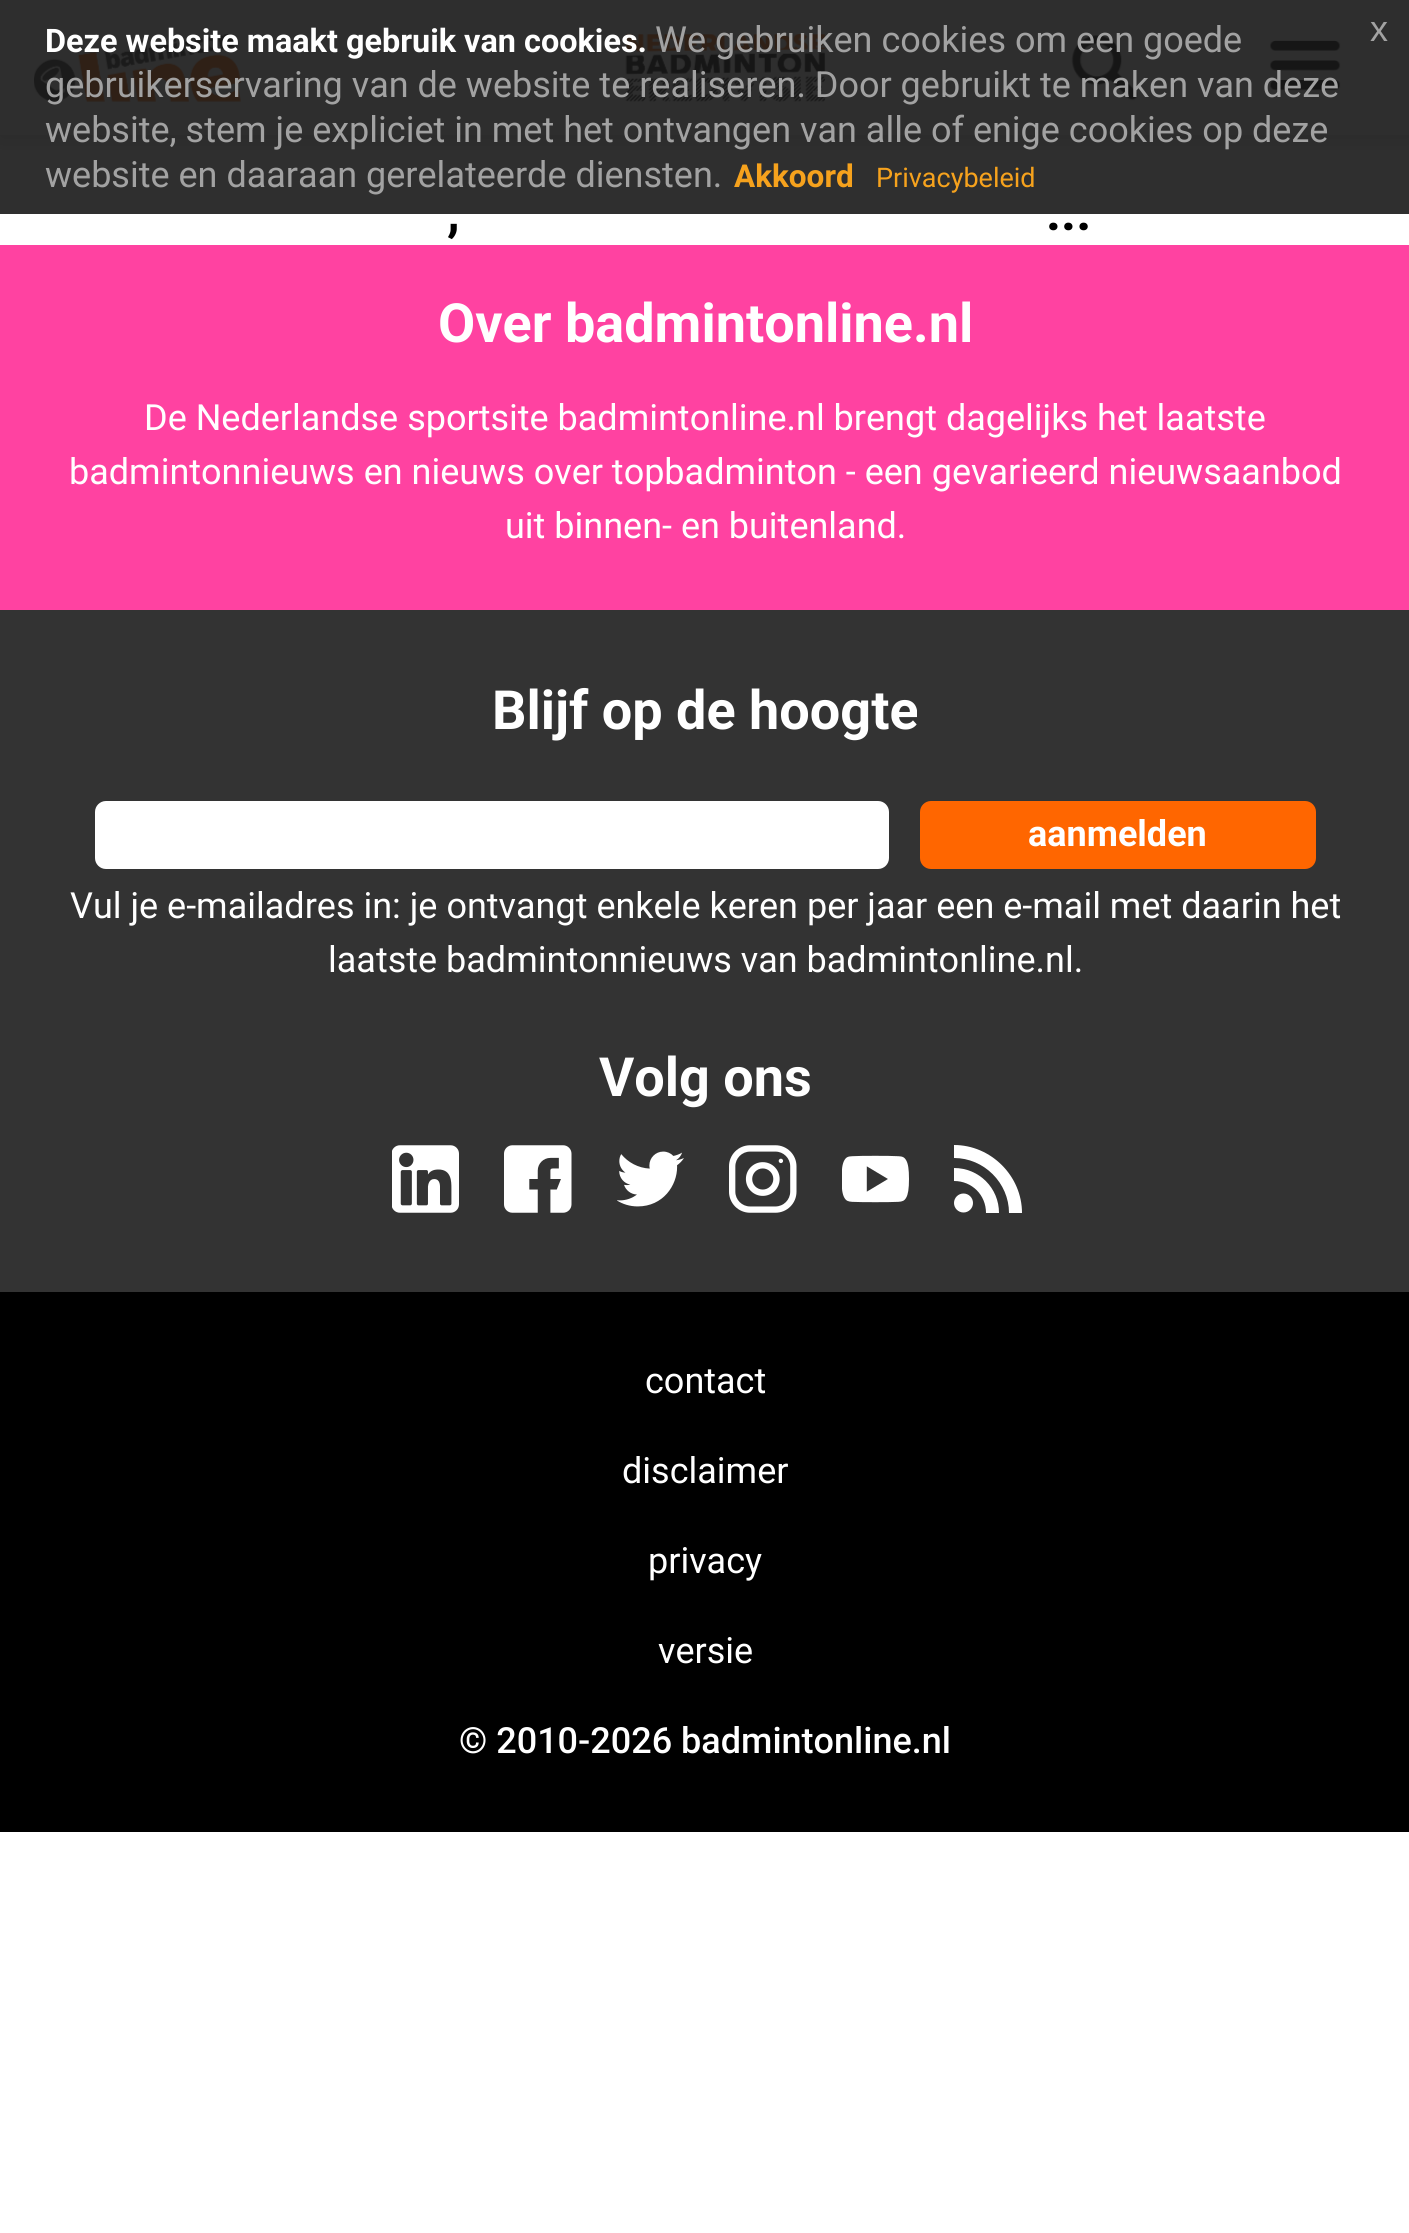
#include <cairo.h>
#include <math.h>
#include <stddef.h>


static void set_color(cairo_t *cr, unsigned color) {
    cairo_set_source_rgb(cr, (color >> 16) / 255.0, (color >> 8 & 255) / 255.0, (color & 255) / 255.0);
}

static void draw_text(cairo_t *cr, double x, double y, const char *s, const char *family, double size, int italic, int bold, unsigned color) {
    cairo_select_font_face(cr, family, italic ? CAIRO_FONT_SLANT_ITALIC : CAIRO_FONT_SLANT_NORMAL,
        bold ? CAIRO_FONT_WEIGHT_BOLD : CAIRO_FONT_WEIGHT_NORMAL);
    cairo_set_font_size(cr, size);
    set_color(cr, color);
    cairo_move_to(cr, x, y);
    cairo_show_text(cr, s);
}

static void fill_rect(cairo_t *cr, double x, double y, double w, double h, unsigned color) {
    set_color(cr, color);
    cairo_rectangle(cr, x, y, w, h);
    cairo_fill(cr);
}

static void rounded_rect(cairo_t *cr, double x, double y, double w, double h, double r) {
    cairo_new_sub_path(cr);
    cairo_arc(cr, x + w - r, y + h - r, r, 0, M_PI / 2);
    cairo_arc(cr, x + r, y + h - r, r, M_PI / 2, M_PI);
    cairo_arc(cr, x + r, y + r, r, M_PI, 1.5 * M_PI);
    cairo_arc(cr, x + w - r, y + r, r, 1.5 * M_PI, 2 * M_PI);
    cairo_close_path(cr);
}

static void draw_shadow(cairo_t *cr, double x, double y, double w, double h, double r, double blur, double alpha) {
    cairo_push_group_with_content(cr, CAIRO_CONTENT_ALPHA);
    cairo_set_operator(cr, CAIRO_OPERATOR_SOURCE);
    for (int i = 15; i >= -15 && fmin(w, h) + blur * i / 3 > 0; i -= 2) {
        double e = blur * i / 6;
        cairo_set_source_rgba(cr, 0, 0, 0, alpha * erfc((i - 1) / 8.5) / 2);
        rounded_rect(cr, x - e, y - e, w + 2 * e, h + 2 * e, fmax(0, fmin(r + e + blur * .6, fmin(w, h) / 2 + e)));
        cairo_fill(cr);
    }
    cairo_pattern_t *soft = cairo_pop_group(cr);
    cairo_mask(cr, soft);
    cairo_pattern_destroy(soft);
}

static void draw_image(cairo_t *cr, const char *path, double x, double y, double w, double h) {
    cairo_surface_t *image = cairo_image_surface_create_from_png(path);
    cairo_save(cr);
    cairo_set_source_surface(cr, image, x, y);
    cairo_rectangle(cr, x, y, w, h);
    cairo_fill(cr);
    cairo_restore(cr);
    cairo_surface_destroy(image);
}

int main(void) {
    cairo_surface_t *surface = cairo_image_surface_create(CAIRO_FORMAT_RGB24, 1409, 2233);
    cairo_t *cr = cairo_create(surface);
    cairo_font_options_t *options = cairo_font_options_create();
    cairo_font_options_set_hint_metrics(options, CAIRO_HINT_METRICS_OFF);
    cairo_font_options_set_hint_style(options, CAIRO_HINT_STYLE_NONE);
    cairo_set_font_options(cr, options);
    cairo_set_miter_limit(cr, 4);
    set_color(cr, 0xFFFFFF);
    cairo_paint(cr);
    set_color(cr, 0x000000);
    draw_shadow(cr, 0, 2, 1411, 135, 0, 11, 0.25);
    fill_rect(cr, 0, 0, 1409, 135, 0xF1F1F1);
    draw_image(cr, "assets/img1.png", 34, 34, 207, 68);
    draw_image(cr, "assets/img2.png", 625, 34, 201, 68);
    draw_image(cr, "assets/img3.png", 1071, 35, 67, 66);
    draw_image(cr, "assets/img4.png", 1270, 40, 71, 51);
    cairo_set_source_rgba(cr, 0.098, 0.098, 0.098, 0.9);
    cairo_rectangle(cr, 0, 0, 1409, 214);
    cairo_fill(cr);
    draw_text(cr, 45, 52, "Deze website maakt gebruik van cookies.", "Roboto", 32.4, 0, 1, 0xFFFFFF);
    draw_text(cr, 655, 52, "We gebruiken cookies om een goede", "Roboto", 36, 0, 0, 0xA2A2A2);
    draw_text(cr, 1370, 41, "x", "Liberation Sans", 36, 0, 0, 0xA2A2A2);
    draw_text(cr, 45, 97, "gebruikerservaring van de website te realiseren. Door gebruikt te maken van deze", "Roboto", 36, 0, 0, 0xA2A2A2);
    draw_text(cr, 45, 142, "website, stem je expliciet in met het ontvangen van alle of enige cookies op deze", "Roboto", 36, 0, 0, 0xA2A2A2);
    draw_text(cr, 45, 187, "website en daaraan gerelateerde diensten.", "Roboto", 36, 0, 0, 0xA2A2A2);
    draw_text(cr, 734, 187, "Akkoord", "Roboto", 31.5, 0, 1, 0xF6A21D);
    draw_text(cr, 876, 187, "Privacybeleid", "Roboto", 27, 0, 0, 0xF6A21D);
    draw_text(cr, 447, 230, ",", "Roboto", 52, 0, 1, 0x000000);
    draw_text(cr, 1046, 230, "...", "Roboto", 52, 0, 1, 0x000000);
    fill_rect(cr, 0, 610, 1409, 682, 0x333333);
    fill_rect(cr, 0, 245, 1409, 365, 0xFF42A1);
    draw_text(cr, 438, 342, "Over badmintonline.nl", "Roboto", 54, 0, 1, 0xFFFFFF);
    draw_text(cr, 144, 430, "De Nederlandse sportsite badmintonline.nl brengt dagelijks het laatste", "Roboto", 36, 0, 0, 0xFFFFFF);
    draw_text(cr, 69, 484, "badmintonnieuws en nieuws over topbadminton - een gevarieerd nieuwsaanbod", "Roboto", 36, 0, 0, 0xFFFFFF);
    draw_text(cr, 505, 538, "uit binnen- en buitenland.", "Roboto", 36, 0, 0, 0xFFFFFF);
    draw_text(cr, 492, 729, "Blijf op de hoogte", "Roboto", 54, 0, 1, 0xFFFFFF);
    rounded_rect(cr, 95, 801, 794, 68, 11);
    cairo_fill(cr);
    set_color(cr, 0xFF6600);
    rounded_rect(cr, 920, 801, 396, 68, 11);
    cairo_fill(cr);
    draw_text(cr, 1028, 846, "aanmelden", "Roboto", 36, 0, 1, 0xFFFFFF);
    draw_text(cr, 70, 918, "Vul je e-mailadres in: je ontvangt enkele keren per jaar een e-mail met daarin het", "Roboto", 36, 0, 0, 0xFFFFFF);
    draw_text(cr, 328, 972, "laatste badmintonnieuws van badmintonline.nl.", "Roboto", 36, 0, 0, 0xFFFFFF);
    draw_text(cr, 599, 1096, "Volg ons", "Roboto", 54, 0, 1, 0xFFFFFF);
    draw_image(cr, "assets/img5.png", 392, 1145, 67, 68);
    draw_image(cr, "assets/img6.png", 504, 1145, 68, 68);
    draw_image(cr, "assets/img7.png", 617, 1151, 67, 56);
    draw_image(cr, "assets/img8.png", 729, 1145, 68, 68);
    draw_image(cr, "assets/img9.png", 842, 1155, 67, 48);
    cairo_arc(cr, 963.5, 1203, 9.5, 0, 2 * M_PI);
    cairo_fill(cr);
    cairo_set_fill_rule(cr, CAIRO_FILL_RULE_EVEN_ODD);
    cairo_new_path(cr);
    cairo_move_to(cr, 954, 1168);
    cairo_line_to(cr, 954, 1181);
    cairo_curve_to(cr, 972, 1181, 986, 1195, 986, 1213);
    cairo_line_to(cr, 999, 1213);
    cairo_curve_to(cr, 999, 1188, 979, 1168, 954, 1168);
    cairo_close_path(cr);
    cairo_fill(cr);
    cairo_new_path(cr);
    cairo_move_to(cr, 954, 1145);
    cairo_line_to(cr, 954, 1158);
    cairo_curve_to(cr, 984, 1158, 1009, 1183, 1009, 1213);
    cairo_line_to(cr, 1022, 1213);
    cairo_curve_to(cr, 1022, 1176, 991, 1145, 954, 1145);
    cairo_close_path(cr);
    cairo_fill(cr);
    fill_rect(cr, 0, 1292, 1409, 540, 0x000000);
    draw_text(cr, 645, 1393, "contact", "Roboto", 36, 0, 0, 0xFFFFFF);
    draw_text(cr, 622, 1483, "disclaimer", "Roboto", 36, 0, 0, 0xFFFFFF);
    draw_text(cr, 648, 1573, "privacy", "Roboto", 36, 0, 0, 0xFFFFFF);
    draw_text(cr, 658, 1663, "versie", "Roboto", 36, 0, 0, 0xFFFFFF);
    draw_text(cr, 459, 1753, "© 2010-2026 badmintonline.nl", "Roboto Medium", 36, 0, 0, 0xFFFFFF);
    cairo_surface_write_to_png(surface, "output.png");
    cairo_font_options_destroy(options);
    cairo_destroy(cr);
    cairo_surface_destroy(surface);
    return 0;
}
